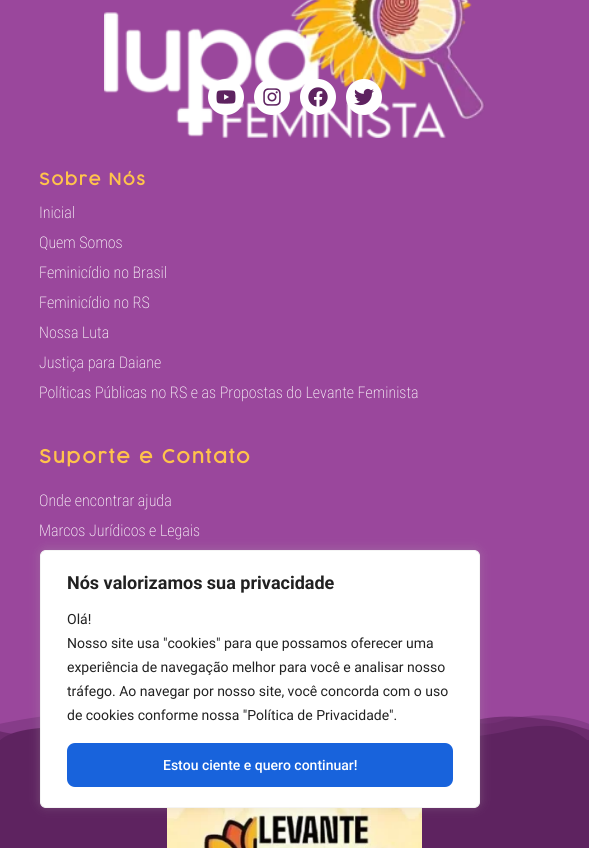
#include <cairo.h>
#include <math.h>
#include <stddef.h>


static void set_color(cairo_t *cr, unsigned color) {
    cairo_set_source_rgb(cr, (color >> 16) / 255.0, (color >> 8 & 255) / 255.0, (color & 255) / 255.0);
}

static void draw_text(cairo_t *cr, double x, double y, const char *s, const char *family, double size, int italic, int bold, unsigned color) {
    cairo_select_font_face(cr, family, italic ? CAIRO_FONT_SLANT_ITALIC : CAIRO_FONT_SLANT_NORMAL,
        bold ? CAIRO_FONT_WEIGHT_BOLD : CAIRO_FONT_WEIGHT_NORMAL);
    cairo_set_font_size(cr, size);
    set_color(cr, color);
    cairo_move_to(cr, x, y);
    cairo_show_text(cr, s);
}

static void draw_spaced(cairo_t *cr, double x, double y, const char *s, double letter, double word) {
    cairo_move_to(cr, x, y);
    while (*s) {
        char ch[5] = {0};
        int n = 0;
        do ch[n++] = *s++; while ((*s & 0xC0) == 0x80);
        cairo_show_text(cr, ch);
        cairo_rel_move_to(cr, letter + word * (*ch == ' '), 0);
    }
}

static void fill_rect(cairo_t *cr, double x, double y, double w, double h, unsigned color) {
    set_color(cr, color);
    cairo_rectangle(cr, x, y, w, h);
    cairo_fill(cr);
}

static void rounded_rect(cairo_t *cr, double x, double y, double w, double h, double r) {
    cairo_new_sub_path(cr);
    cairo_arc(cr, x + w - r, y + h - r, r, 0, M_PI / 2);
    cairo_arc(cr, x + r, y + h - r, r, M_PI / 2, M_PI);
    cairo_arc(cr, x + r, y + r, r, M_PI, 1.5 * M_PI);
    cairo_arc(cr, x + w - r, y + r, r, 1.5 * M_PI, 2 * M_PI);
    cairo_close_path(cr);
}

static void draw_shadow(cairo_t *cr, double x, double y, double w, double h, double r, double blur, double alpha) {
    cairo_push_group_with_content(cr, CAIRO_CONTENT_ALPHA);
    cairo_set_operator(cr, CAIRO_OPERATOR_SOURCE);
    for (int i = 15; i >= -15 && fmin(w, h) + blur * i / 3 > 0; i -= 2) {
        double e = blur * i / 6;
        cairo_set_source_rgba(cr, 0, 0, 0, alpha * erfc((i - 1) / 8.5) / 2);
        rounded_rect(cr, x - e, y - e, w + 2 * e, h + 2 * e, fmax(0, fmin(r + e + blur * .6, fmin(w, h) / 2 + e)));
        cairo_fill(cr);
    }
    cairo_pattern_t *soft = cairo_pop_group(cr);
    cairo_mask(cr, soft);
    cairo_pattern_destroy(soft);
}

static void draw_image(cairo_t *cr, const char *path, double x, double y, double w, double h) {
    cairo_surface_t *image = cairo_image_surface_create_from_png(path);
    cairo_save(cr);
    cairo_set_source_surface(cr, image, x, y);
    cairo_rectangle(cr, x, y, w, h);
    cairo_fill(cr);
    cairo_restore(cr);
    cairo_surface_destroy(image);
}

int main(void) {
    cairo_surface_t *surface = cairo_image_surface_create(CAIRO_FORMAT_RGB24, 589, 848);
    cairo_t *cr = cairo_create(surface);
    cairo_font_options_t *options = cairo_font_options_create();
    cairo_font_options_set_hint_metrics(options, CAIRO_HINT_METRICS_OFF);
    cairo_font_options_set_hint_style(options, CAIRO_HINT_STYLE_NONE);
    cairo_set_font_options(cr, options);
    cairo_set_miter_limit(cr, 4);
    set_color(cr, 0x9A479C);
    cairo_paint(cr);
    draw_image(cr, "assets/img1.png", 104, 0, 381, 138);
    set_color(cr, 0xFFFFFF);
    cairo_arc(cr, 226, 97, 18, 0, 2 * M_PI);
    cairo_fill(cr);
    draw_image(cr, "assets/img2.png", 216, 90, 20, 14);
    cairo_arc(cr, 272, 97, 18, 0, 2 * M_PI);
    cairo_fill(cr);
    draw_image(cr, "assets/img3.png", 263, 88, 18, 18);
    cairo_arc(cr, 318, 97, 18, 0, 2 * M_PI);
    cairo_fill(cr);
    draw_image(cr, "assets/img4.png", 308, 87, 20, 20);
    cairo_arc(cr, 364, 97, 18, 0, 2 * M_PI);
    cairo_fill(cr);
    draw_image(cr, "assets/img5.png", 354, 88, 20, 18);
    cairo_select_font_face(cr, "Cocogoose", CAIRO_FONT_SLANT_NORMAL, CAIRO_FONT_WEIGHT_BOLD);
    cairo_set_font_size(cr, 16);
    set_color(cr, 0xFFC34B);
    draw_spaced(cr, 39, 185, "Sobre Nós", 1.5, 0);
    draw_text(cr, 39, 218, "Inicial", "Roboto Condensed ExtraLight", 16, 0, 0, 0xFFFFFF);
    draw_text(cr, 39, 248, "Quem Somos", "Roboto Condensed ExtraLight", 16, 0, 0, 0xFFFFFF);
    draw_text(cr, 39, 278, "Feminicídio no Brasil", "Roboto Condensed ExtraLight", 16, 0, 0, 0xFFFFFF);
    draw_text(cr, 39, 308, "Feminicídio no RS", "Roboto Condensed ExtraLight", 16, 0, 0, 0xFFFFFF);
    draw_text(cr, 39, 338, "Nossa Luta", "Roboto Condensed ExtraLight", 16, 0, 0, 0xFFFFFF);
    draw_text(cr, 39, 368, "Justiça para Daiane", "Roboto Condensed ExtraLight", 16, 0, 0, 0xFFFFFF);
    draw_text(cr, 39, 398, "Políticas Públicas no RS e as Propostas do Levante Feminista", "Roboto Condensed ExtraLight", 16, 0, 0, 0xFFFFFF);
    cairo_select_font_face(cr, "Cocogoose", CAIRO_FONT_SLANT_NORMAL, CAIRO_FONT_WEIGHT_BOLD);
    cairo_set_font_size(cr, 18);
    set_color(cr, 0xFFC34B);
    draw_spaced(cr, 39, 463, "Suporte e Contato", 1.75, 0);
    draw_text(cr, 39, 506, "Onde encontrar ajuda", "Roboto Condensed ExtraLight", 16, 0, 0, 0xFFFFFF);
    draw_text(cr, 39, 536, "Marcos Jurídicos e Legais", "Roboto Condensed ExtraLight", 16, 0, 0, 0xFFFFFF);
    draw_image(cr, "assets/img6.png", 0, 715, 589, 25);
    fill_rect(cr, 0, 740, 589, 108, 0x5E2360);
    draw_image(cr, "assets/img7.png", 167, 808, 255, 40);
    set_color(cr, 0xACABAB);
    draw_shadow(cr, 40, 549, 440, 258, 6, 5, 0.3);
    set_color(cr, 0xFFFFFF);
    rounded_rect(cr, 40.5, 550.5, 439, 257, 5.5);
    cairo_fill_preserve(cr);
    set_color(cr, 0xF4F4F4);
    cairo_set_line_width(cr, 1);
    cairo_stroke(cr);
    draw_text(cr, 67, 589, "Nós valorizamos sua privacidade", "Roboto", 18, 0, 1, 0x212121);
    draw_text(cr, 67, 624, "Olá!", "Roboto", 14, 0, 0, 0x212121);
    draw_text(cr, 67, 648, "Nosso site usa \"cookies\" para que possamos oferecer uma", "Roboto", 14, 0, 0, 0x212121);
    draw_text(cr, 67, 672, "experiência de navegação melhor para você e analisar nosso", "Roboto", 14, 0, 0, 0x212121);
    draw_text(cr, 67, 696, "tráfego. Ao navegar por nosso site, você concorda com o uso", "Roboto", 14, 0, 0, 0x212121);
    draw_text(cr, 67, 720, "de cookies conforme nossa \"Política de Privacidade\".", "Roboto", 14, 0, 0, 0x212121);
    set_color(cr, 0x1863DC);
    rounded_rect(cr, 68, 744, 384, 42, 7);
    cairo_fill_preserve(cr);
    cairo_set_line_width(cr, 2);
    cairo_stroke(cr);
    draw_text(cr, 163, 770, "Estou ciente e quero continuar!", "Roboto Medium", 14, 0, 0, 0xFFFFFF);
    cairo_surface_write_to_png(surface, "output.png");
    cairo_font_options_destroy(options);
    cairo_destroy(cr);
    cairo_surface_destroy(surface);
    return 0;
}
